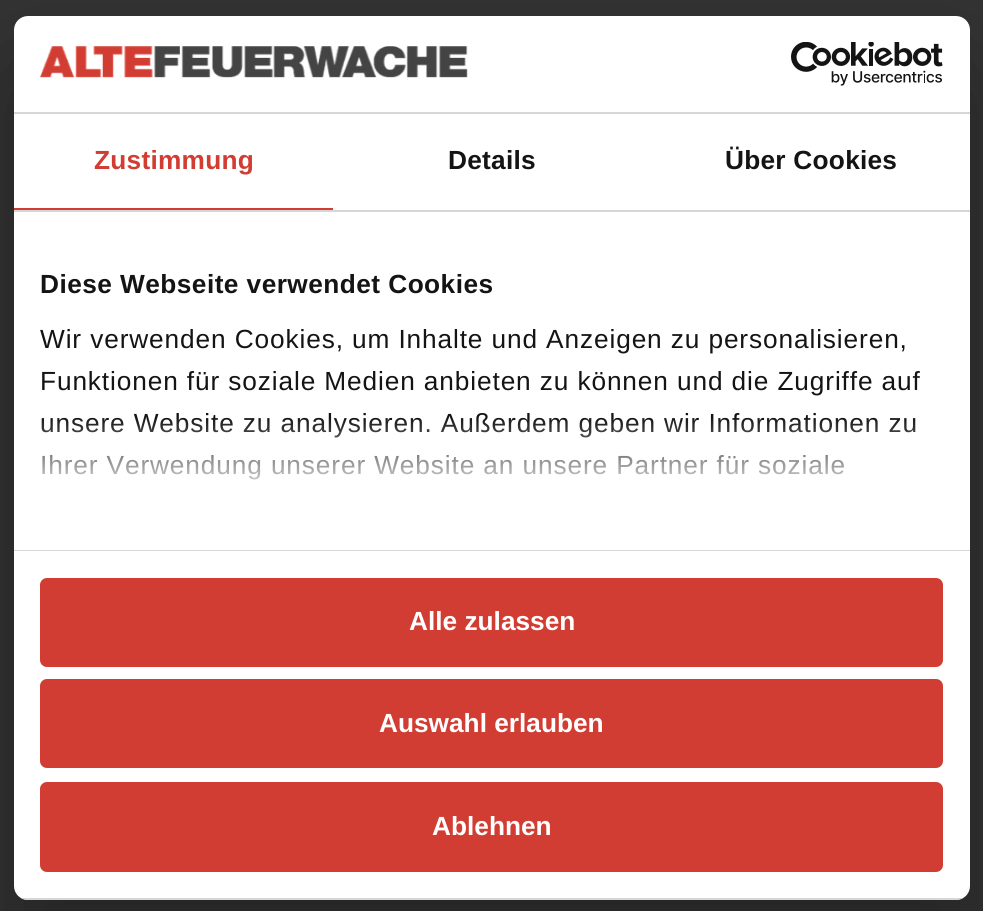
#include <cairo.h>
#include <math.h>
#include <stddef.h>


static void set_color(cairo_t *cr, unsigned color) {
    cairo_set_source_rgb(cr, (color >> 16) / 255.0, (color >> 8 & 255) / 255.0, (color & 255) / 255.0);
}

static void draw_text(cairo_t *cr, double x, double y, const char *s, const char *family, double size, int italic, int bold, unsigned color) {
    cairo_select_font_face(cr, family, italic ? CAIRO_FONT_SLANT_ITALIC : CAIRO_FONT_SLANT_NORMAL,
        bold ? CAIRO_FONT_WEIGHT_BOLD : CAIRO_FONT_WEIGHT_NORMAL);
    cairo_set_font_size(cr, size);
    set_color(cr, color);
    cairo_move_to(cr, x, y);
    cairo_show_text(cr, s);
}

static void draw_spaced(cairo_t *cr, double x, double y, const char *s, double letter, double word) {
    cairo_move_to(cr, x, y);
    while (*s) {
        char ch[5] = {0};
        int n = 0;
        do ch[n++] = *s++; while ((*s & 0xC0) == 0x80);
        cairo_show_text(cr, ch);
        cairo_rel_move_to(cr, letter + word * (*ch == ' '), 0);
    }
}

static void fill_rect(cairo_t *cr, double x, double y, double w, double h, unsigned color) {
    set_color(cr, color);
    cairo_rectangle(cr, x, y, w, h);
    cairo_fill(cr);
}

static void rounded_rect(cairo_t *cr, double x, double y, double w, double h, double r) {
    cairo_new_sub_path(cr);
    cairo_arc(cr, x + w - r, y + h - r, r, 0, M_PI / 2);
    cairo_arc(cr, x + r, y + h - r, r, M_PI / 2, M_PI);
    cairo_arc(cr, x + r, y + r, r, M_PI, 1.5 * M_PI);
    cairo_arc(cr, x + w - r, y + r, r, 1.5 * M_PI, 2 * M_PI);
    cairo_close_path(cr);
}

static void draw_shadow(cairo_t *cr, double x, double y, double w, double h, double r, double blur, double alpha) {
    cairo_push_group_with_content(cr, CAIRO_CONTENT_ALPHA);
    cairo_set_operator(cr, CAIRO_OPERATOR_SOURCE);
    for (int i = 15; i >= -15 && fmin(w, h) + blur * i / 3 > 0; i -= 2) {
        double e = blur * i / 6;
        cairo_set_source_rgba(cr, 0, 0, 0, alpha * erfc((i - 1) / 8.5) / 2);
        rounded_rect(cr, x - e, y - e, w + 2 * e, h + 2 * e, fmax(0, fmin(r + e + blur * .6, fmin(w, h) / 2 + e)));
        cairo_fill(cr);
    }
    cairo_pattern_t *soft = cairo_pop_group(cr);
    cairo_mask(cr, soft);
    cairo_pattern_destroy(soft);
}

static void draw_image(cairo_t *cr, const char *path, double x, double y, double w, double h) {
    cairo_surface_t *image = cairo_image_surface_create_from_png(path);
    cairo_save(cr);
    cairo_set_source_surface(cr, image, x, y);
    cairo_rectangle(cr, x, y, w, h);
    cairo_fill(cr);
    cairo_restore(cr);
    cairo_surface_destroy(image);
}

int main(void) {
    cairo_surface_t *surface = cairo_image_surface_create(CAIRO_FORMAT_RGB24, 983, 911);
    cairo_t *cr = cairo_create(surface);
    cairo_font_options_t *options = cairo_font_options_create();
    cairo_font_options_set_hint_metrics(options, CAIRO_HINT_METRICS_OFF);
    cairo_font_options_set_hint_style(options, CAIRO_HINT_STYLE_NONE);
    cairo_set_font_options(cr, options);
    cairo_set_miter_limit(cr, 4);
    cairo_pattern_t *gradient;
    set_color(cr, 0x333333);
    cairo_paint(cr);
    set_color(cr, 0x000000);
    draw_shadow(cr, 14, 72, 956, 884, 14, 59.5, 0.3);
    set_color(cr, 0xFFFFFF);
    rounded_rect(cr, 14, 16, 956, 884, 14);
    cairo_fill(cr);
    fill_rect(cr, 14, 112, 956, 2, 0xD6D6D6);
    draw_image(cr, "assets/img1.png", 40, 46, 428, 32);
    draw_image(cr, "assets/img2.png", 791, 42, 152, 44);
    fill_rect(cr, 14, 210, 956, 2, 0xD6D6D6);
    fill_rect(cr, 14, 208, 319, 2, 0xD13D32);
    cairo_select_font_face(cr, "Liberation Sans", CAIRO_FONT_SLANT_NORMAL, CAIRO_FONT_WEIGHT_BOLD);
    cairo_set_font_size(cr, 26.25);
    draw_spaced(cr, 94, 169, "Zustimmung", 0.25, 0);
    set_color(cr, 0x141414);
    draw_spaced(cr, 448, 169, "Details", 0.25, 0);
    draw_spaced(cr, 725, 169, "Über Cookies", 0.25, 0);
    fill_rect(cr, 14, 550, 956, 1, 0xD6D6D6);
    set_color(cr, 0x141414);
    draw_spaced(cr, 40, 293, "Diese Webseite verwendet Cookies", 0.45, 0);
    cairo_select_font_face(cr, "Liberation Sans", CAIRO_FONT_SLANT_NORMAL, CAIRO_FONT_WEIGHT_NORMAL);
    draw_spaced(cr, 40, 348, "Wir verwenden Cookies, um Inhalte und Anzeigen zu personalisieren,", 0.88, 0);
    draw_spaced(cr, 40, 390, "Funktionen für soziale Medien anbieten zu können und die Zugriffe auf", 0.88, 0);
    draw_spaced(cr, 40, 432, "unsere Website zu analysieren. Außerdem geben wir Informationen zu", 0.88, 0);
    draw_spaced(cr, 40, 474, "Ihrer Verwendung unserer Website an unsere Partner für soziale", 0.88, 0);
    gradient = cairo_pattern_create_linear(480, 549, 480, 417);
    cairo_pattern_add_color_stop_rgba(gradient, 0, 1, 1, 1, 1);
    cairo_pattern_add_color_stop_rgba(gradient, 0.5, 1, 1, 1, 0.8);
    cairo_pattern_add_color_stop_rgba(gradient, 1, 1, 1, 1, 0);
    cairo_set_source(cr, gradient);
    cairo_pattern_destroy(gradient);
    cairo_rectangle(cr, 42, 419, 874, 61);
    cairo_fill(cr);
    cairo_save(cr);
    rounded_rect(cr, 14, 16, 956, 884, 14);
    cairo_clip(cr);
    fill_rect(cr, 14, 898, 956, 2, 0xD6D6D6);
    cairo_restore(cr);
    set_color(cr, 0xD13D32);
    rounded_rect(cr, 42, 580, 899, 85, 5);
    cairo_fill_preserve(cr);
    cairo_set_line_width(cr, 4);
    cairo_stroke(cr);
    draw_text(cr, 409, 630, "Alle zulassen", "Liberation Sans", 26.25, 0, 1, 0xFFFFFF);
    set_color(cr, 0xD13D32);
    rounded_rect(cr, 42, 681, 899, 85, 5);
    cairo_fill_preserve(cr);
    cairo_stroke(cr);
    draw_text(cr, 379, 732, "Auswahl erlauben", "Liberation Sans", 26.25, 0, 1, 0xFFFFFF);
    set_color(cr, 0xD13D32);
    rounded_rect(cr, 42, 784, 899, 86, 5);
    cairo_fill_preserve(cr);
    cairo_stroke(cr);
    draw_text(cr, 432, 835, "Ablehnen", "Liberation Sans", 26.25, 0, 1, 0xFFFFFF);
    cairo_surface_write_to_png(surface, "output.png");
    cairo_font_options_destroy(options);
    cairo_destroy(cr);
    cairo_surface_destroy(surface);
    return 0;
}
